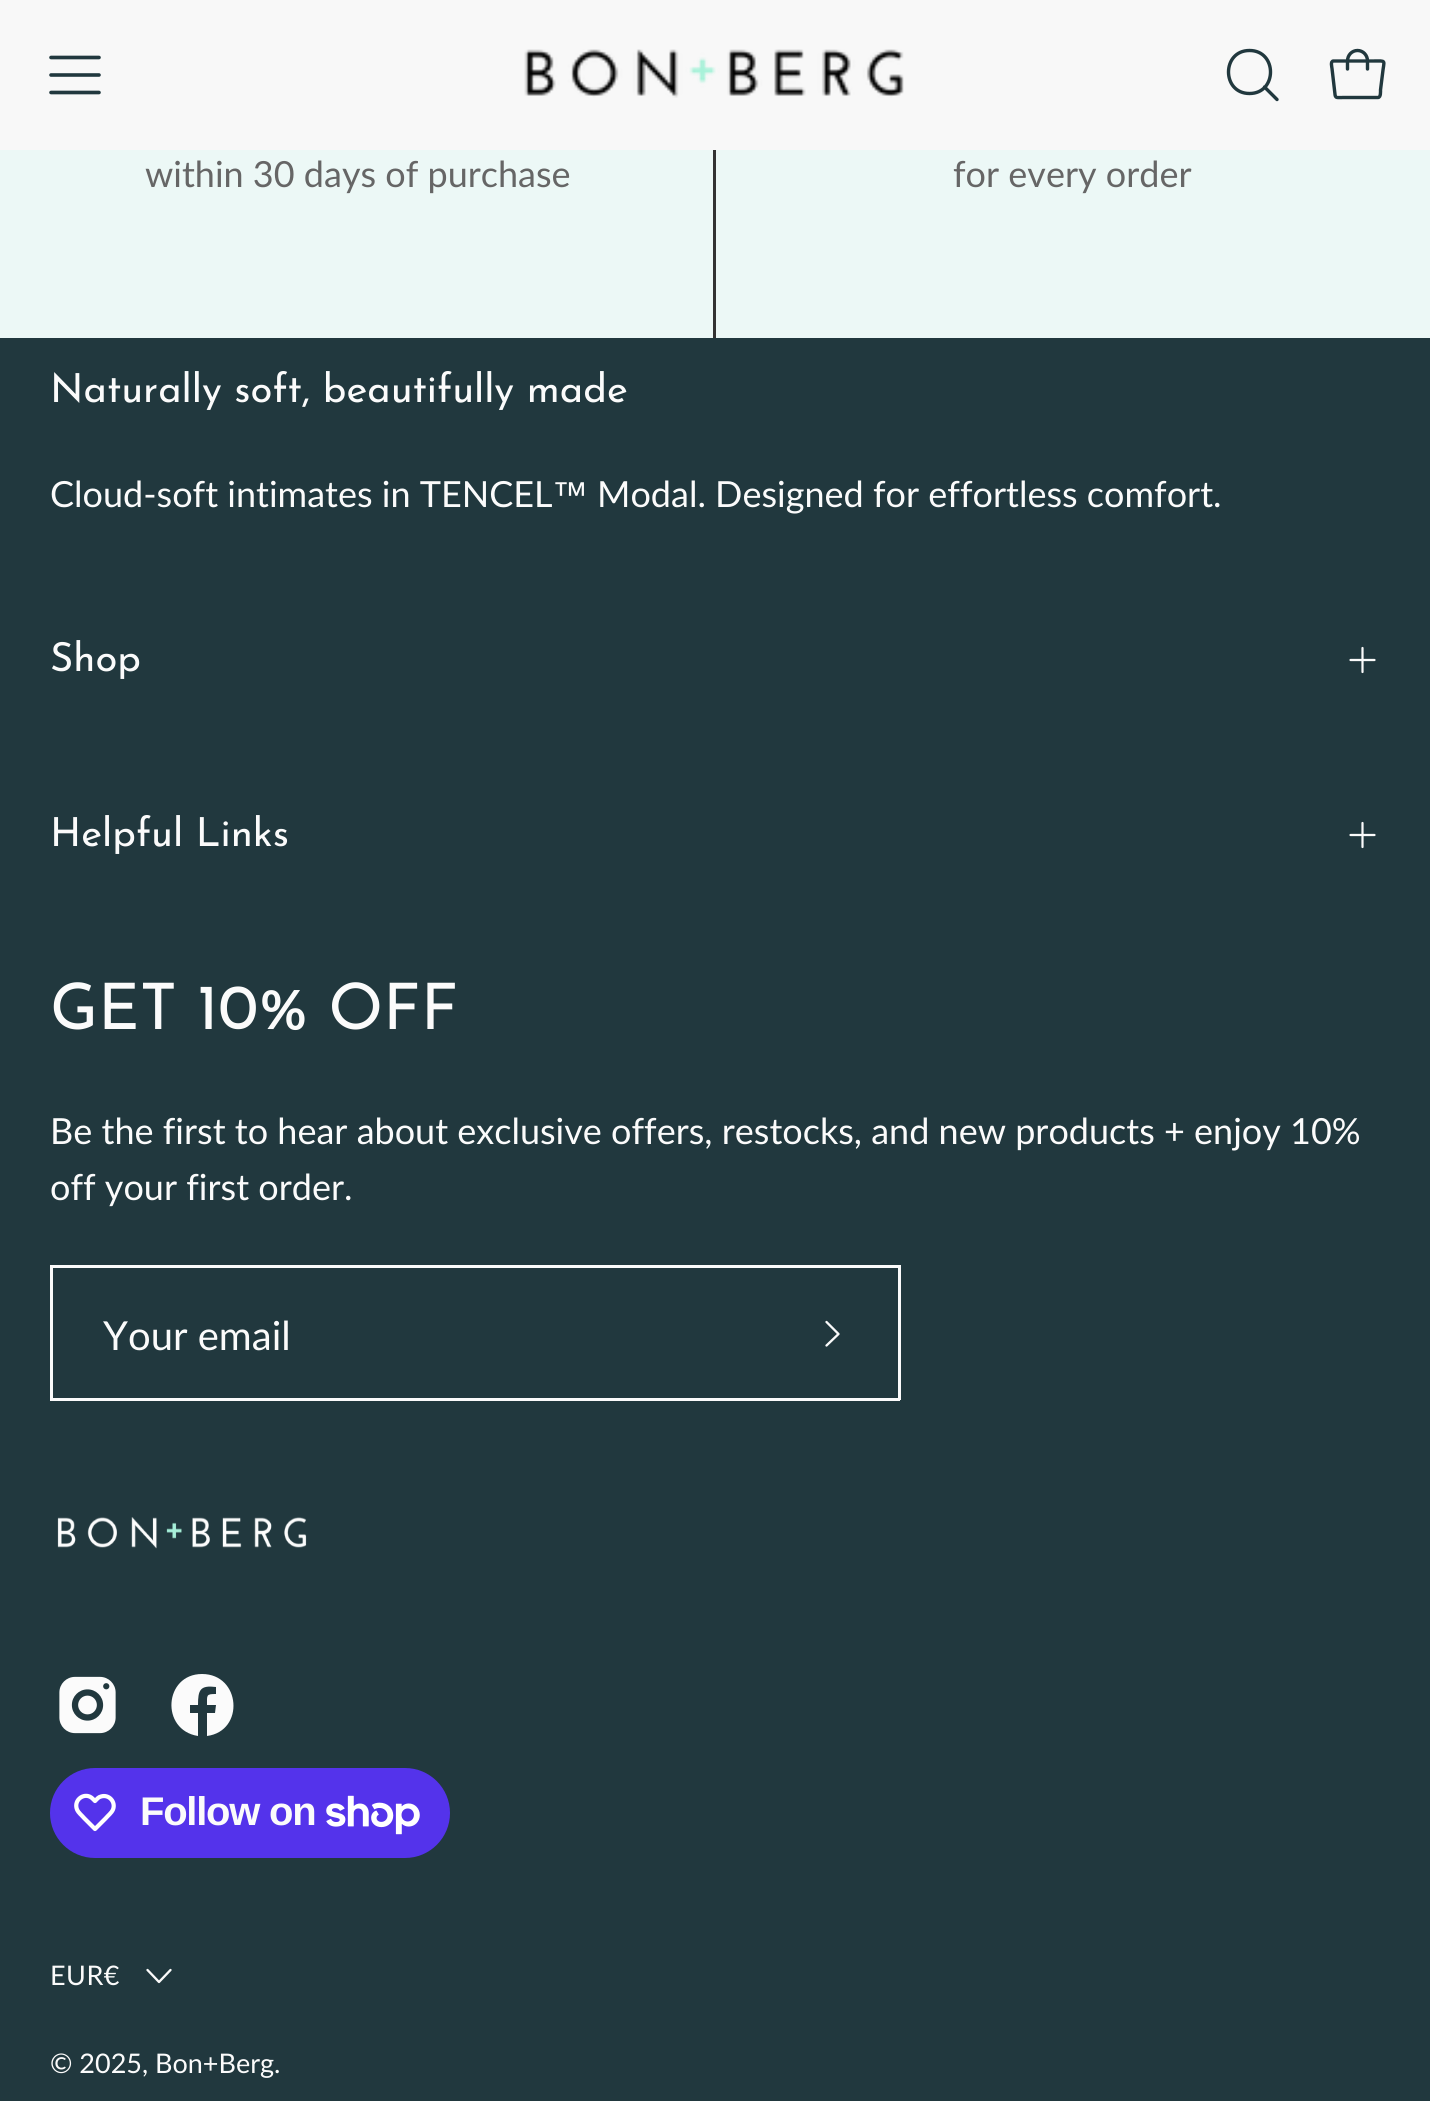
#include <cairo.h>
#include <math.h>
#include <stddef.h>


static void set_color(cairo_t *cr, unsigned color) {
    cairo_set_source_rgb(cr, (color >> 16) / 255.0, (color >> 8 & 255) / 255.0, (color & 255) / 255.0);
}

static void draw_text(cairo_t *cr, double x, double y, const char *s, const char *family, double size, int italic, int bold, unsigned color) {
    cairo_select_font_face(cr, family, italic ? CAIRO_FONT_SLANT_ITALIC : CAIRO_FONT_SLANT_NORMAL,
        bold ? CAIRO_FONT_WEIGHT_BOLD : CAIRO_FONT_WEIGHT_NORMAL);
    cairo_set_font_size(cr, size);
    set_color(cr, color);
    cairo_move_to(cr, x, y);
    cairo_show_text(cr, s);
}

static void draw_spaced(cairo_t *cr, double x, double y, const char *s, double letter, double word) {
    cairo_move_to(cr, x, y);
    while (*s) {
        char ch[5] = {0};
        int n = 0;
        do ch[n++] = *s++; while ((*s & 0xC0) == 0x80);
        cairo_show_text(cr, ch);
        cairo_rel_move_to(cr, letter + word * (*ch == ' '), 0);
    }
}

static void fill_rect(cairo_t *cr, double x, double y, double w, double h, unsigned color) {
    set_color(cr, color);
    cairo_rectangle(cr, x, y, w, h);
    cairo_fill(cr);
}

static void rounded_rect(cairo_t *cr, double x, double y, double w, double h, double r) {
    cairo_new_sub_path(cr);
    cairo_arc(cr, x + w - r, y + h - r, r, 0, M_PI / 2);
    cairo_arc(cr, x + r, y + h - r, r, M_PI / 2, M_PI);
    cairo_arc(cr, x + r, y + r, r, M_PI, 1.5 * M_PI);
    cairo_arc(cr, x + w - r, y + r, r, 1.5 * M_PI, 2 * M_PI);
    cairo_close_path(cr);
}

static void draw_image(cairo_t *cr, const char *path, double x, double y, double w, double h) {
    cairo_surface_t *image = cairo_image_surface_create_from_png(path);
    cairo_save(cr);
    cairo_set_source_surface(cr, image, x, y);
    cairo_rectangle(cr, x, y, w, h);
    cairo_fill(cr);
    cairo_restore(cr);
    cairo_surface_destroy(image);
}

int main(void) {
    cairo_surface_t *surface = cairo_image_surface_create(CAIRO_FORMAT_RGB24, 1430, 2101);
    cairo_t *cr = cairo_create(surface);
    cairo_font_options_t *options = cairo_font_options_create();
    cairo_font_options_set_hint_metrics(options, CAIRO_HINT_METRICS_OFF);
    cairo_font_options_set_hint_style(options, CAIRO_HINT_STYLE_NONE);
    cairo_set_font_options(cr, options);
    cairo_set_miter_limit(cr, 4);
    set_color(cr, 0xECF8F6);
    cairo_paint(cr);
    fill_rect(cr, 0, 0, 1430, 150, 0xF8F8F8);
    cairo_new_path(cr);
    cairo_move_to(cr, 51, 75);
    cairo_line_to(cr, 99, 75);
    cairo_move_to(cr, 51, 57.5);
    cairo_line_to(cr, 99, 57.5);
    cairo_move_to(cr, 51, 92.5);
    cairo_line_to(cr, 99, 92.5);
    set_color(cr, 0x21383E);
    cairo_set_line_width(cr, 3.6);
    cairo_set_line_cap(cr, CAIRO_LINE_CAP_ROUND);
    cairo_set_line_join(cr, CAIRO_LINE_JOIN_ROUND);
    cairo_stroke(cr);
    draw_image(cr, "assets/img1.png", 524, 49, 380, 49);
    cairo_new_path(cr);
    cairo_move_to(cr, 1249.5, 93.5);
    cairo_curve_to(cr, 1277.5, 93.5, 1277.5, 50.5, 1249.5, 50.5);
    cairo_curve_to(cr, 1221.5, 50.5, 1221.5, 93.5, 1249.5, 93.5);
    cairo_close_path(cr);
    cairo_move_to(cr, 1264.5, 87);
    cairo_line_to(cr, 1277, 99.5);
    cairo_set_line_width(cr, 3.4);
    cairo_stroke(cr);
    cairo_new_path(cr);
    cairo_move_to(cr, 1378, 97.5);
    cairo_line_to(cr, 1344, 97.5);
    cairo_curve_to(cr, 1334.5, 97.5, 1335.5, 99, 1334.5, 90);
    cairo_line_to(cr, 1332, 68.5);
    cairo_curve_to(cr, 1332, 67.5, 1330, 61, 1333.5, 61);
    cairo_line_to(cr, 1373.5, 61);
    cairo_curve_to(cr, 1387, 61, 1384, 59.5, 1382.5, 74);
    cairo_line_to(cr, 1380.5, 90);
    cairo_curve_to(cr, 1380.5, 91, 1381, 97.5, 1378, 97.5);
    cairo_close_path(cr);
    cairo_move_to(cr, 1347.5, 69);
    cairo_line_to(cr, 1347.5, 61);
    cairo_curve_to(cr, 1347.5, 55, 1352, 50.5, 1357.5, 50.5);
    cairo_curve_to(cr, 1363, 50.5, 1367.5, 55, 1367.5, 61);
    cairo_line_to(cr, 1367.5, 69);
    cairo_stroke(cr);
    draw_text(cr, 145, 187, "within 30 days of purchase", "Lato", 36, 0, 0, 0x666666);
    fill_rect(cr, 713, 150, 3, 188, 0x333333);
    draw_text(cr, 953, 187, "for every order", "Lato", 36, 0, 0, 0x666666);
    fill_rect(cr, 0, 338, 1430, 1763, 0x21383E);
    draw_text(cr, 50, 402, "Naturally soft, beautifully made", "Josefin Sans", 40, 0, 0, 0xFBFBFB);
    draw_text(cr, 50, 507, "Cloud-soft intimates in TENCEL", "Lato", 36, 0, 0, 0xFBFBFB);
    draw_text(cr, 552, 507, "™", "Liberation Sans", 36, 0, 0, 0xFBFBFB);
    draw_text(cr, 597, 507, "Modal. Designed for effortless comfort.", "Lato", 36, 0, 0, 0xFBFBFB);
    draw_text(cr, 50, 671, "Shop", "Josefin Sans", 40, 0, 0, 0xFBFBFB);
    cairo_new_path(cr);
    cairo_move_to(cr, 1350.5, 660);
    cairo_line_to(cr, 1374.5, 660);
    cairo_move_to(cr, 1362.5, 648);
    cairo_line_to(cr, 1362.5, 672);
    cairo_move_to(cr, 1350.5, 660);
    cairo_line_to(cr, 1374.5, 660);
    cairo_set_line_width(cr, 2.2);
    cairo_stroke(cr);
    draw_text(cr, 50, 846, "Helpful Links", "Josefin Sans", 40, 0, 0, 0xFBFBFB);
    cairo_new_path(cr);
    cairo_move_to(cr, 1350.5, 835);
    cairo_line_to(cr, 1374.5, 835);
    cairo_move_to(cr, 1362.5, 823);
    cairo_line_to(cr, 1362.5, 847);
    cairo_move_to(cr, 1350.5, 835);
    cairo_line_to(cr, 1374.5, 835);
    cairo_stroke(cr);
    draw_text(cr, 50, 1029, "GET 10% OFF", "Josefin Sans", 64, 0, 0, 0xFBFBFB);
    draw_text(cr, 50, 1144, "Be the first to hear about exclusive offers, restocks, and new products + enjoy 10%", "Lato", 36, 0, 0, 0xFBFBFB);
    draw_text(cr, 50, 1200, "off your first order.", "Lato", 36, 0, 0, 0xFBFBFB);
    fill_rect(cr, 50, 1265, 850, 3, 0xFBFBFB);
    fill_rect(cr, 50, 1398, 715, 3, 0xFBFBFB);
    fill_rect(cr, 50, 1265, 3, 135, 0xFBFBFB);
    draw_text(cr, 103, 1350, "Your email", "Lato", 40, 0, 0, 0xFBFBFB);
    fill_rect(cr, 898, 1265, 3, 135, 0xFBFBFB);
    fill_rect(cr, 765, 1398, 135, 3, 0xFBFBFB);
    cairo_new_path(cr);
    cairo_move_to(cr, 826.5, 1322);
    cairo_line_to(cr, 838.5, 1334);
    cairo_line_to(cr, 826.5, 1345.5);
    cairo_set_line_width(cr, 2.3);
    cairo_stroke(cr);
    draw_image(cr, "assets/img2.png", 57, 1517, 250, 32);
    draw_image(cr, "assets/img3.png", 59, 1676, 57, 58);
    cairo_new_path(cr);
    cairo_move_to(cr, 202, 1674);
    cairo_curve_to(cr, 164, 1674, 160, 1730, 198, 1736);
    cairo_line_to(cr, 198, 1713);
    cairo_line_to(cr, 190, 1713);
    cairo_line_to(cr, 190, 1705);
    cairo_line_to(cr, 198, 1705);
    cairo_curve_to(cr, 198, 1690, 200, 1685, 216, 1687);
    cairo_line_to(cr, 216, 1694);
    cairo_curve_to(cr, 206, 1694, 207, 1695, 207, 1705);
    cairo_line_to(cr, 216, 1705);
    cairo_line_to(cr, 215, 1713);
    cairo_line_to(cr, 207, 1713);
    cairo_line_to(cr, 207, 1736);
    cairo_curve_to(cr, 245, 1731, 241, 1674, 202, 1674);
    cairo_close_path(cr);
    cairo_fill(cr);
    set_color(cr, 0x5433EB);
    rounded_rect(cr, 50, 1768, 400, 90, 45);
    cairo_fill(cr);
    cairo_new_path(cr);
    cairo_move_to(cr, 93, 1799);
    cairo_line_to(cr, 95, 1801);
    cairo_curve_to(cr, 97, 1799, 98.5, 1797, 101, 1796.5);
    cairo_curve_to(cr, 109, 1794, 116, 1802, 113, 1809.5);
    cairo_curve_to(cr, 111.5, 1813, 108, 1815.5, 105.5, 1818.5);
    cairo_line_to(cr, 95, 1829);
    cairo_line_to(cr, 84.5, 1818.5);
    cairo_curve_to(cr, 82, 1815.5, 78.5, 1813, 77, 1809.5);
    cairo_curve_to(cr, 73, 1799.5, 85.5, 1791, 93, 1799);
    cairo_close_path(cr);
    set_color(cr, 0xFFFFFF);
    cairo_set_line_width(cr, 4.2);
    cairo_set_line_cap(cr, CAIRO_LINE_CAP_BUTT);
    cairo_stroke(cr);
    cairo_select_font_face(cr, "Liberation Sans", CAIRO_FONT_SLANT_NORMAL, CAIRO_FONT_WEIGHT_BOLD);
    set_color(cr, 0xFBFBFB);
    draw_spaced(cr, 140, 1825, "Follow on", -1.25, 0);
    draw_image(cr, "assets/img4.png", 326, 1795, 94, 40);
    cairo_select_font_face(cr, "Lato", CAIRO_FONT_SLANT_NORMAL, CAIRO_FONT_WEIGHT_NORMAL);
    cairo_set_font_size(cr, 27);
    draw_spaced(cr, 50, 1985, "EUR€", 0.5, 0);
    cairo_new_path(cr);
    cairo_move_to(cr, 170.5, 1970);
    cairo_line_to(cr, 159, 1982);
    cairo_line_to(cr, 147.5, 1970);
    cairo_set_line_width(cr, 2.3);
    cairo_set_line_cap(cr, CAIRO_LINE_CAP_ROUND);
    cairo_stroke(cr);
    draw_text(cr, 50, 2073, "© 2025, Bon+Berg.", "Lato", 27, 0, 0, 0xFBFBFB);
    cairo_surface_write_to_png(surface, "output.png");
    cairo_font_options_destroy(options);
    cairo_destroy(cr);
    cairo_surface_destroy(surface);
    return 0;
}
